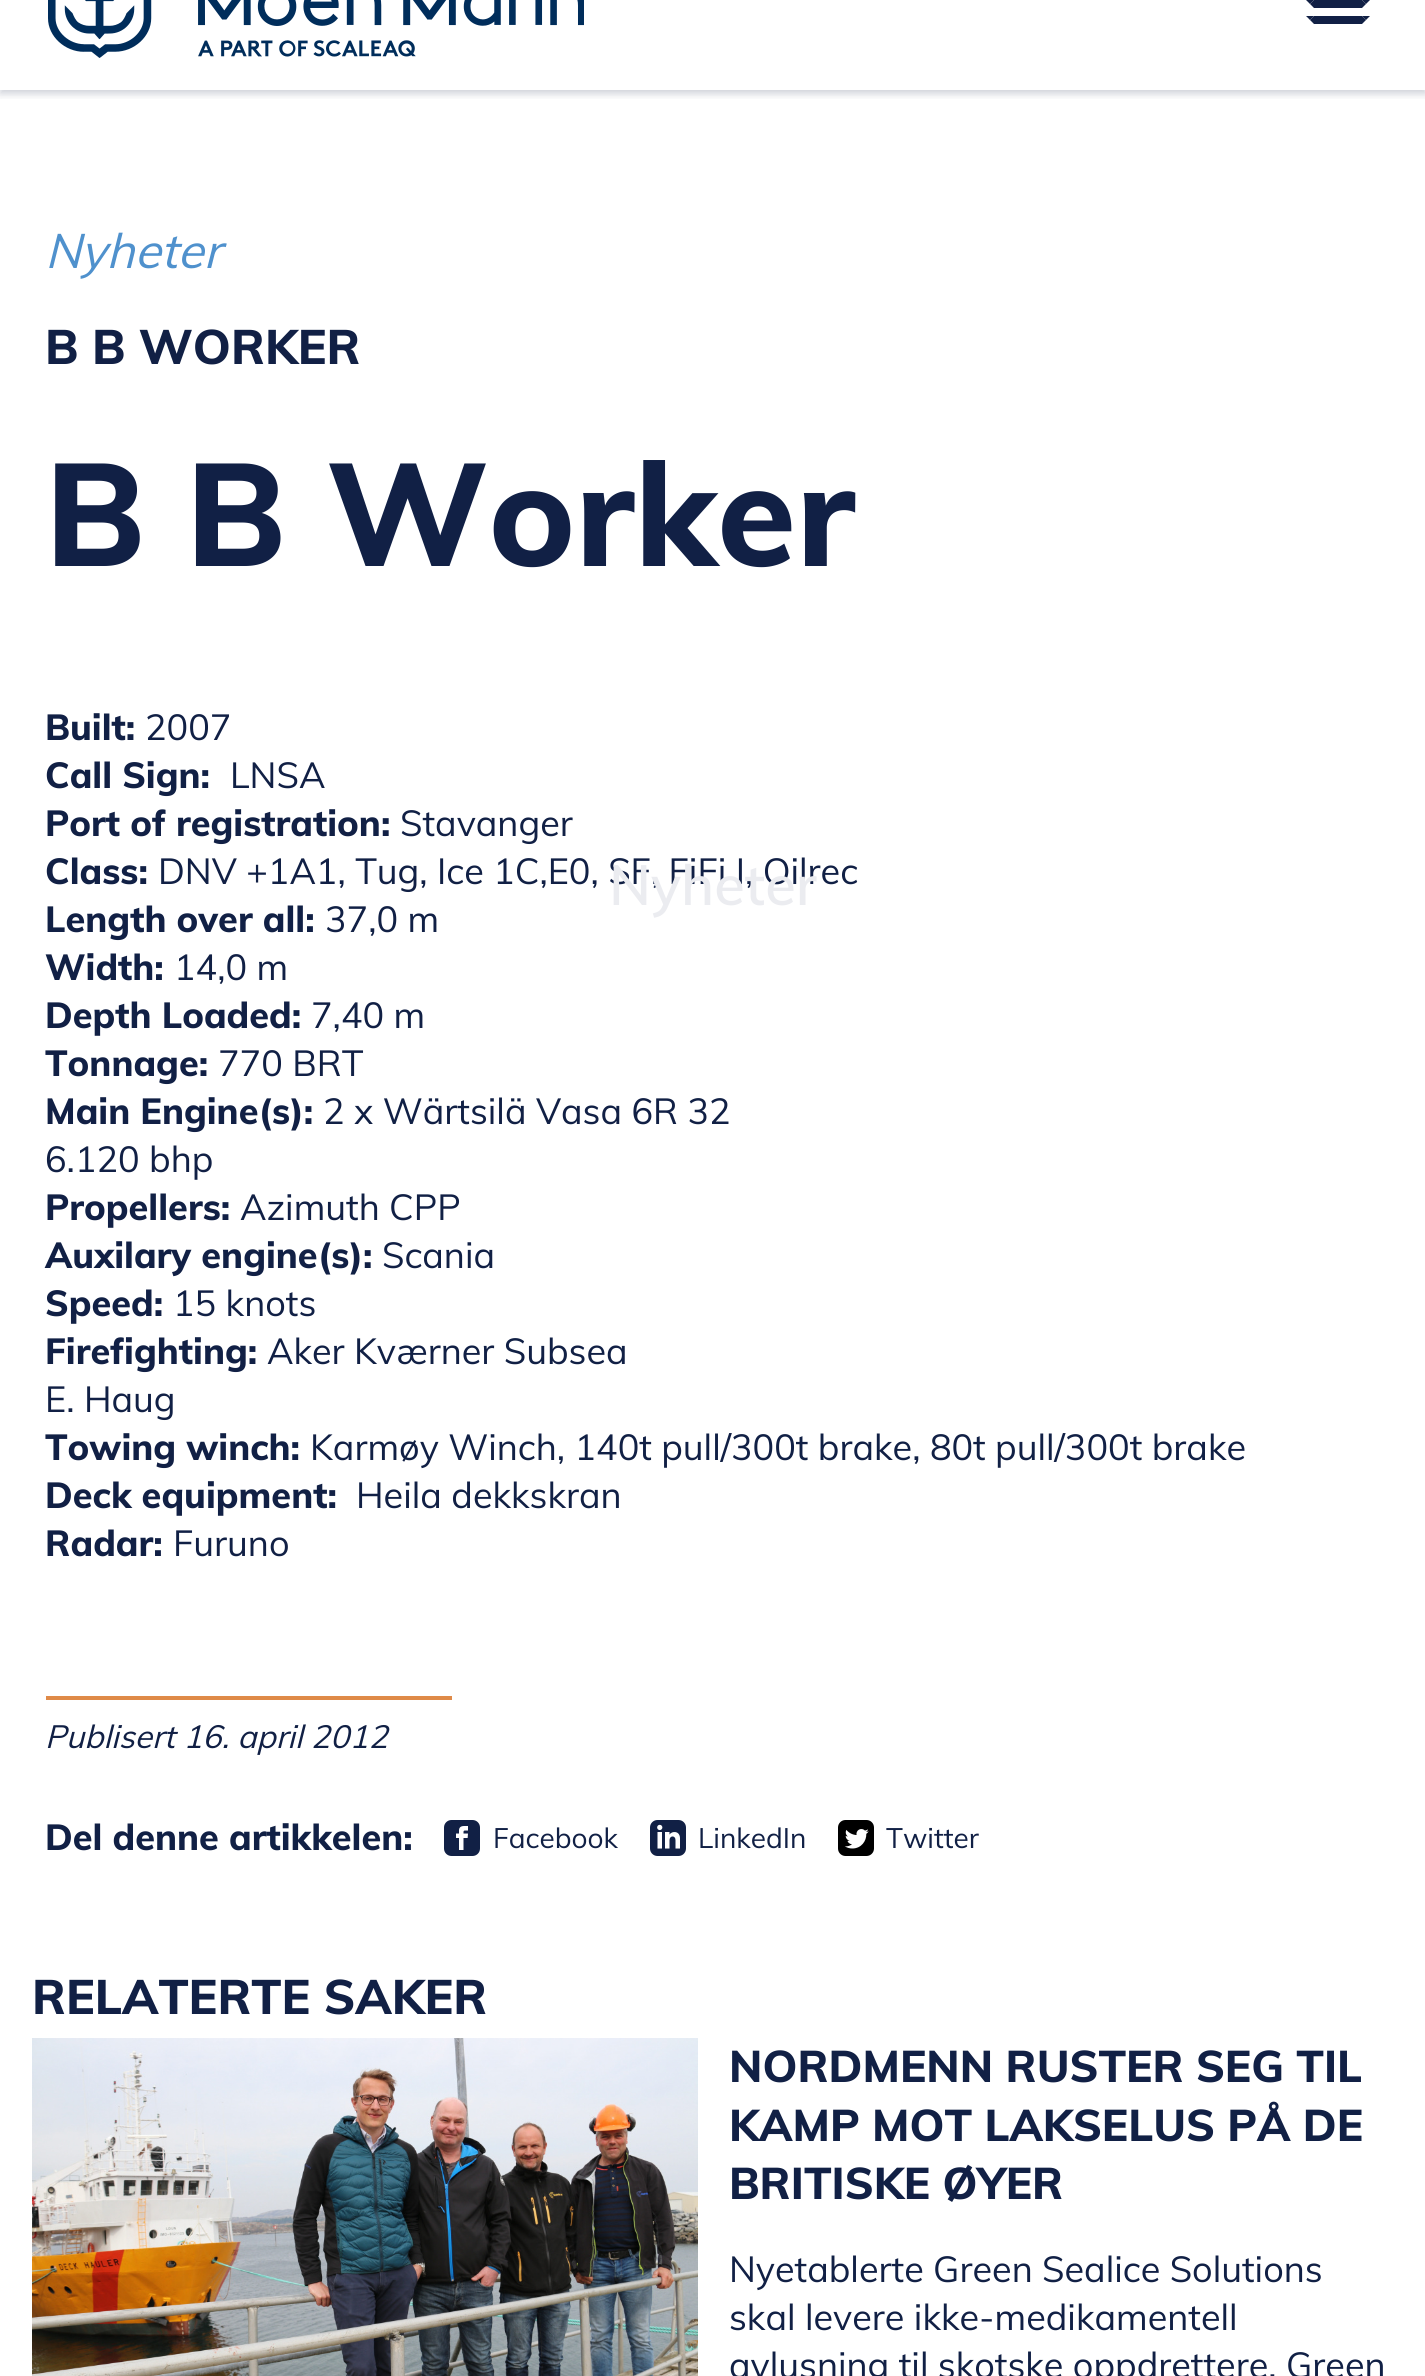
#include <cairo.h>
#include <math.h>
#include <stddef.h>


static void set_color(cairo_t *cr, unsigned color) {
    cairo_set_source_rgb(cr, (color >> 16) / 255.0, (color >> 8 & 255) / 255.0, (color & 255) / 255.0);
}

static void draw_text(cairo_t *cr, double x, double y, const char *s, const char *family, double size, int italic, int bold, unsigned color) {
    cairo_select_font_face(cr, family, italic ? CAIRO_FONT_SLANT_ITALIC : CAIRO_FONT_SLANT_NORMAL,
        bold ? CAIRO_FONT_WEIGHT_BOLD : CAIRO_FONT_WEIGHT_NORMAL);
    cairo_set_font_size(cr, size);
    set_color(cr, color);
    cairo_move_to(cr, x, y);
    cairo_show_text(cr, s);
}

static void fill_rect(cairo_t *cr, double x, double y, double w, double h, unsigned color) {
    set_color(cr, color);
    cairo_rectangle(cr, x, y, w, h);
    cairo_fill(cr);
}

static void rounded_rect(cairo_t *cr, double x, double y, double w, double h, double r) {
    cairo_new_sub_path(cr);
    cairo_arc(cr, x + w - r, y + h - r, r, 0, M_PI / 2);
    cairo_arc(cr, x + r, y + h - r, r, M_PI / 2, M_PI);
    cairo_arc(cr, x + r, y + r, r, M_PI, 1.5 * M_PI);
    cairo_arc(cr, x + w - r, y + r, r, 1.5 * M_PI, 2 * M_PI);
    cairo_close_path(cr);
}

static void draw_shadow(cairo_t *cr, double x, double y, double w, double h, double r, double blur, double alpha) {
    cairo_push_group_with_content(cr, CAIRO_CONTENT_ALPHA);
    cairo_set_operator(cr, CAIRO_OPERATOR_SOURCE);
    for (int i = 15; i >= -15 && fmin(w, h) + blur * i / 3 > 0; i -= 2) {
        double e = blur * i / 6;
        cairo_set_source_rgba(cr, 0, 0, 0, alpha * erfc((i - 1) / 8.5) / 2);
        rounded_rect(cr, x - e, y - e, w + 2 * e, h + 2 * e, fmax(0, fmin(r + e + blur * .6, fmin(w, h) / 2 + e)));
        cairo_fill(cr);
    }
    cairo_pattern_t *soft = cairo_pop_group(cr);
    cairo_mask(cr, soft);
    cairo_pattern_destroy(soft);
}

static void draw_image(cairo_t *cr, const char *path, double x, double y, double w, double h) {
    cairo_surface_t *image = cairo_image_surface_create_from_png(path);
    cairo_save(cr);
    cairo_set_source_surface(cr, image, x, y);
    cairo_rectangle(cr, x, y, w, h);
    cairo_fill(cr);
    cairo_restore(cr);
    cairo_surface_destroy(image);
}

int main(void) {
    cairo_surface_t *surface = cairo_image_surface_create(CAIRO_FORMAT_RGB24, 1425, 2376);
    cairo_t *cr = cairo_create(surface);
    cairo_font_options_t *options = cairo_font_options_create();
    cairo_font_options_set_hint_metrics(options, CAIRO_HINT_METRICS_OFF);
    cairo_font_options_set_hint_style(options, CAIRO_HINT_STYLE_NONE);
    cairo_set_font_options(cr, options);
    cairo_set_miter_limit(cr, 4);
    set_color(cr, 0xFFFFFF);
    cairo_paint(cr);
    draw_text(cr, 45, 268, "Nyheter", "Muli", 48, 1, 0, 0x4F91CD);
    draw_text(cr, 45, 364, "B B WORKER", "Muli ExtraBold", 48, 0, 0, 0x112045);
    draw_text(cr, 45, 566, "B B Worker", "Muli ExtraBold", 144, 0, 0, 0x112045);
    draw_text(cr, 45, 740, "Built:", "Muli ExtraBold", 36, 0, 0, 0x112045);
    draw_text(cr, 145, 740, "2007", "Muli", 36, 0, 0, 0x112045);
    draw_text(cr, 45, 788, "Call Sign:", "Muli ExtraBold", 36, 0, 0, 0x112045);
    draw_text(cr, 230, 788, "LNSA", "Muli", 36, 0, 0, 0x112045);
    draw_text(cr, 45, 836, "Port of registration:", "Muli ExtraBold", 36, 0, 0, 0x112045);
    draw_text(cr, 400, 836, "Stavanger", "Muli", 36, 0, 0, 0x112045);
    draw_text(cr, 45, 884, "Class:", "Muli ExtraBold", 36, 0, 0, 0x112045);
    draw_text(cr, 158, 884, "DNV +1A1, Tug, Ice 1C,E0, SF, FiFi I, Oilrec", "Muli", 36, 0, 0, 0x112045);
    draw_text(cr, 45, 932, "Length over all:", "Muli ExtraBold", 36, 0, 0, 0x112045);
    draw_text(cr, 325, 932, "37,0 m", "Muli", 36, 0, 0, 0x112045);
    draw_text(cr, 45, 980, "Width:", "Muli ExtraBold", 36, 0, 0, 0x112045);
    draw_text(cr, 174, 980, "14,0 m", "Muli", 36, 0, 0, 0x112045);
    draw_text(cr, 45, 1028, "Depth Loaded:", "Muli ExtraBold", 36, 0, 0, 0x112045);
    draw_text(cr, 311, 1028, "7,40 m", "Muli", 36, 0, 0, 0x112045);
    draw_text(cr, 45, 1076, "Tonnage:", "Muli ExtraBold", 36, 0, 0, 0x112045);
    draw_text(cr, 218, 1076, "770 BRT", "Muli", 36, 0, 0, 0x112045);
    draw_text(cr, 45, 1124, "Main Engine(s):", "Muli ExtraBold", 36, 0, 0, 0x112045);
    draw_text(cr, 323, 1124, "2 x Wärtsilä Vasa 6R 32", "Muli", 36, 0, 0, 0x112045);
    draw_text(cr, 45, 1172, "6.120 bhp", "Muli", 36, 0, 0, 0x112045);
    draw_text(cr, 45, 1220, "Propellers:", "Muli ExtraBold", 36, 0, 0, 0x112045);
    draw_text(cr, 240, 1220, "Azimuth CPP", "Muli", 36, 0, 0, 0x112045);
    draw_text(cr, 45, 1268, "Auxilary engine(s):", "Muli ExtraBold", 36, 0, 0, 0x112045);
    draw_text(cr, 382, 1268, "Scania", "Muli", 36, 0, 0, 0x112045);
    draw_text(cr, 45, 1316, "Speed:", "Muli ExtraBold", 36, 0, 0, 0x112045);
    draw_text(cr, 173, 1316, "15 knots", "Muli", 36, 0, 0, 0x112045);
    draw_text(cr, 45, 1364, "Firefighting:", "Muli ExtraBold", 36, 0, 0, 0x112045);
    draw_text(cr, 267, 1364, "Aker Kværner Subsea", "Muli", 36, 0, 0, 0x112045);
    draw_text(cr, 45, 1412, "E. Haug", "Muli", 36, 0, 0, 0x112045);
    draw_text(cr, 45, 1460, "Towing winch:", "Muli ExtraBold", 36, 0, 0, 0x112045);
    draw_text(cr, 310, 1460, "Karmøy Winch, 140t pull/300t brake, 80t pull/300t brake", "Muli", 36, 0, 0, 0x112045);
    draw_text(cr, 45, 1508, "Deck equipment:", "Muli ExtraBold", 36, 0, 0, 0x112045);
    draw_text(cr, 356, 1508, "Heila dekkskran", "Muli", 36, 0, 0, 0x112045);
    draw_text(cr, 45, 1556, "Radar:", "Muli ExtraBold", 36, 0, 0, 0x112045);
    draw_text(cr, 173, 1556, "Furuno", "Muli", 36, 0, 0, 0x112045);
    fill_rect(cr, 46, 1696, 406, 4, 0xDF8A48);
    draw_text(cr, 45, 1748, "Publisert 16. april 2012", "Muli", 32, 1, 0, 0x112045);
    draw_text(cr, 45, 1850, "Del denne artikkelen:", "Muli ExtraBold", 36, 0, 0, 0x112045);
    draw_image(cr, "assets/img1.png", 444, 1820, 36, 36);
    draw_text(cr, 493, 1848, "Facebook", "Muli", 28, 0, 0, 0x112045);
    draw_image(cr, "assets/img2.png", 650, 1820, 36, 36);
    draw_text(cr, 698, 1848, "LinkedIn", "Muli", 28, 0, 0, 0x112045);
    draw_image(cr, "assets/img3.png", 838, 1820, 36, 36);
    draw_text(cr, 886, 1848, "Twitter", "Muli", 28, 0, 0, 0x112045);
    draw_text(cr, 32, 2014, "RELATERTE SAKER", "Muli ExtraBold", 48, 0, 0, 0x112045);
    draw_image(cr, "assets/img4.png", 32, 2038, 666, 338);
    draw_text(cr, 729, 2082, "NORDMENN RUSTER SEG TIL", "Muli ExtraBold", 44, 0, 0, 0x112045);
    draw_text(cr, 729, 2141, "KAMP MOT LAKSELUS PÅ DE", "Muli ExtraBold", 44, 0, 0, 0x112045);
    draw_text(cr, 729, 2199, "BRITISKE ØYER", "Muli ExtraBold", 44, 0, 0, 0x112045);
    draw_text(cr, 729, 2282, "Nyetablerte Green Sealice Solutions", "Muli", 36, 0, 0, 0x112045);
    draw_text(cr, 729, 2330, "skal levere ikke-medikamentell", "Muli", 36, 0, 0, 0x112045);
    draw_text(cr, 729, 2378, "avlusning til skotske oppdrettere. Green", "Muli", 36, 0, 0, 0x112045);
    cairo_save(cr);
    cairo_rectangle(cr, 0, 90, 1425, 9);
    cairo_clip(cr);
    set_color(cr, 0x112045);
    draw_shadow(cr, 0, -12, 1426, 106, 0, 4, 0.2);
    cairo_restore(cr);
    draw_image(cr, "assets/img5.png", 48, 0, 536, 58);
    fill_rect(cr, 1314, 0, 48, 8, 0x112045);
    cairo_new_path(cr);
    cairo_move_to(cr, 1306, 0);
    cairo_line_to(cr, 1314, 0);
    cairo_line_to(cr, 1310, 4);
    cairo_close_path(cr);
    cairo_fill(cr);
    cairo_new_path(cr);
    cairo_move_to(cr, 1314, 0);
    cairo_line_to(cr, 1314, 8);
    cairo_line_to(cr, 1310, 4);
    cairo_close_path(cr);
    cairo_move_to(cr, 1362, 0);
    cairo_line_to(cr, 1370, 0);
    cairo_line_to(cr, 1366, 4);
    cairo_close_path(cr);
    cairo_fill(cr);
    cairo_new_path(cr);
    cairo_move_to(cr, 1362, 8);
    cairo_line_to(cr, 1362, 0);
    cairo_line_to(cr, 1366, 4);
    cairo_close_path(cr);
    cairo_fill(cr);
    fill_rect(cr, 1314, 16, 48, 8, 0x112045);
    cairo_new_path(cr);
    cairo_move_to(cr, 1306, 16);
    cairo_line_to(cr, 1314, 16);
    cairo_line_to(cr, 1310, 20);
    cairo_close_path(cr);
    cairo_fill(cr);
    cairo_new_path(cr);
    cairo_move_to(cr, 1314, 16);
    cairo_line_to(cr, 1314, 24);
    cairo_line_to(cr, 1310, 20);
    cairo_close_path(cr);
    cairo_move_to(cr, 1362, 16);
    cairo_line_to(cr, 1370, 16);
    cairo_line_to(cr, 1366, 20);
    cairo_close_path(cr);
    cairo_fill(cr);
    cairo_new_path(cr);
    cairo_move_to(cr, 1362, 24);
    cairo_line_to(cr, 1362, 16);
    cairo_line_to(cr, 1366, 20);
    cairo_close_path(cr);
    cairo_fill(cr);
    draw_text(cr, 609, 905, "Nyheter", "Muli SemiBold", 56, 0, 0, 0xEBECF0);
    cairo_surface_write_to_png(surface, "output.png");
    cairo_font_options_destroy(options);
    cairo_destroy(cr);
    cairo_surface_destroy(surface);
    return 0;
}
